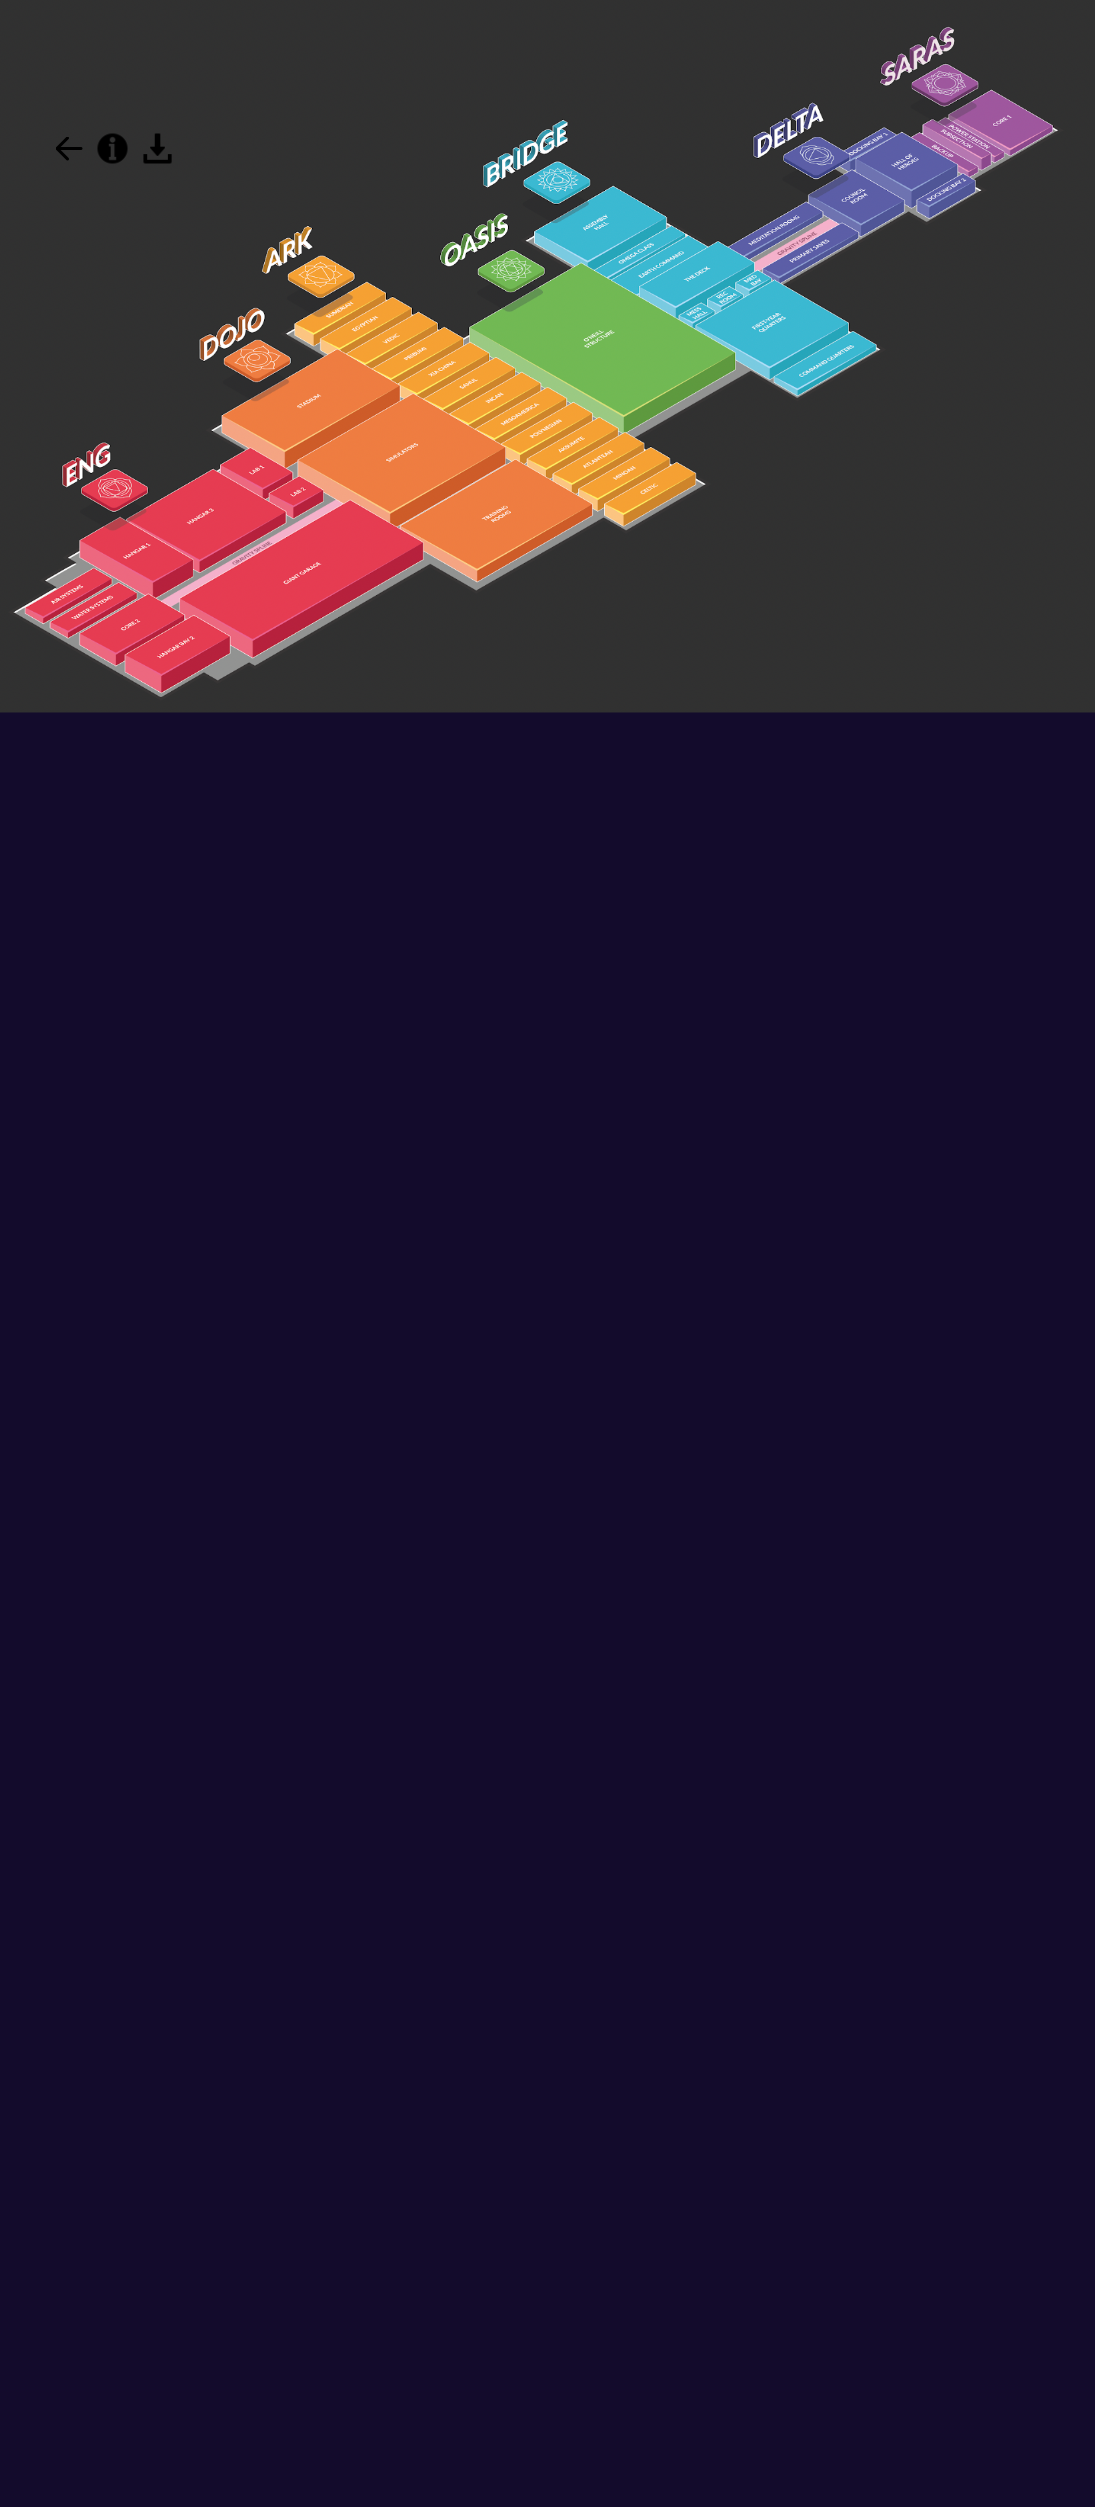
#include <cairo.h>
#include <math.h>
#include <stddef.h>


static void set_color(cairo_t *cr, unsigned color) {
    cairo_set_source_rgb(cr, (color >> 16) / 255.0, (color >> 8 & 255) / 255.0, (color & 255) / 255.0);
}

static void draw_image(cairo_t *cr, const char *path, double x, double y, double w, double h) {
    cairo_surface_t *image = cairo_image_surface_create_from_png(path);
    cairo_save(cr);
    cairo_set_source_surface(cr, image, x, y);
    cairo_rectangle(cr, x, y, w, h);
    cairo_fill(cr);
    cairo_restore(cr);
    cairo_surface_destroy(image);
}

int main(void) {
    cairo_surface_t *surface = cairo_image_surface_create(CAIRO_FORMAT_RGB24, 1095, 2507);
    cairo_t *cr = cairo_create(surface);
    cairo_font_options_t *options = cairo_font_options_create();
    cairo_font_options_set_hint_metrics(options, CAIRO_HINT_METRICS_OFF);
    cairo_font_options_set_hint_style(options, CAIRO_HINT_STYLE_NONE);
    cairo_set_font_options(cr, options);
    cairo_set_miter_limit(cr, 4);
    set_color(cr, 0x130B2C);
    cairo_paint(cr);
    draw_image(cr, "assets/img1.png", 0, 0, 1095, 713);
    cairo_save(cr);
    cairo_rectangle(cr, 56, 137, 27, 24);
    cairo_clip(cr);
    cairo_new_path(cr);
    cairo_move_to(cr, 67.5, 138);
    cairo_line_to(cr, 57, 148.5);
    cairo_line_to(cr, 67.5, 159);
    cairo_move_to(cr, 57, 148.5);
    cairo_line_to(cr, 81, 148.5);
    set_color(cr, 0x000000);
    cairo_set_line_width(cr, 3);
    cairo_set_line_cap(cr, CAIRO_LINE_CAP_ROUND);
    cairo_set_line_join(cr, CAIRO_LINE_JOIN_ROUND);
    cairo_stroke(cr);
    cairo_restore(cr);
    draw_image(cr, "assets/img2.png", 97, 133, 31, 31);
    draw_image(cr, "assets/img3.png", 143, 133, 29, 31);
    cairo_surface_write_to_png(surface, "output.png");
    cairo_font_options_destroy(options);
    cairo_destroy(cr);
    cairo_surface_destroy(surface);
    return 0;
}
